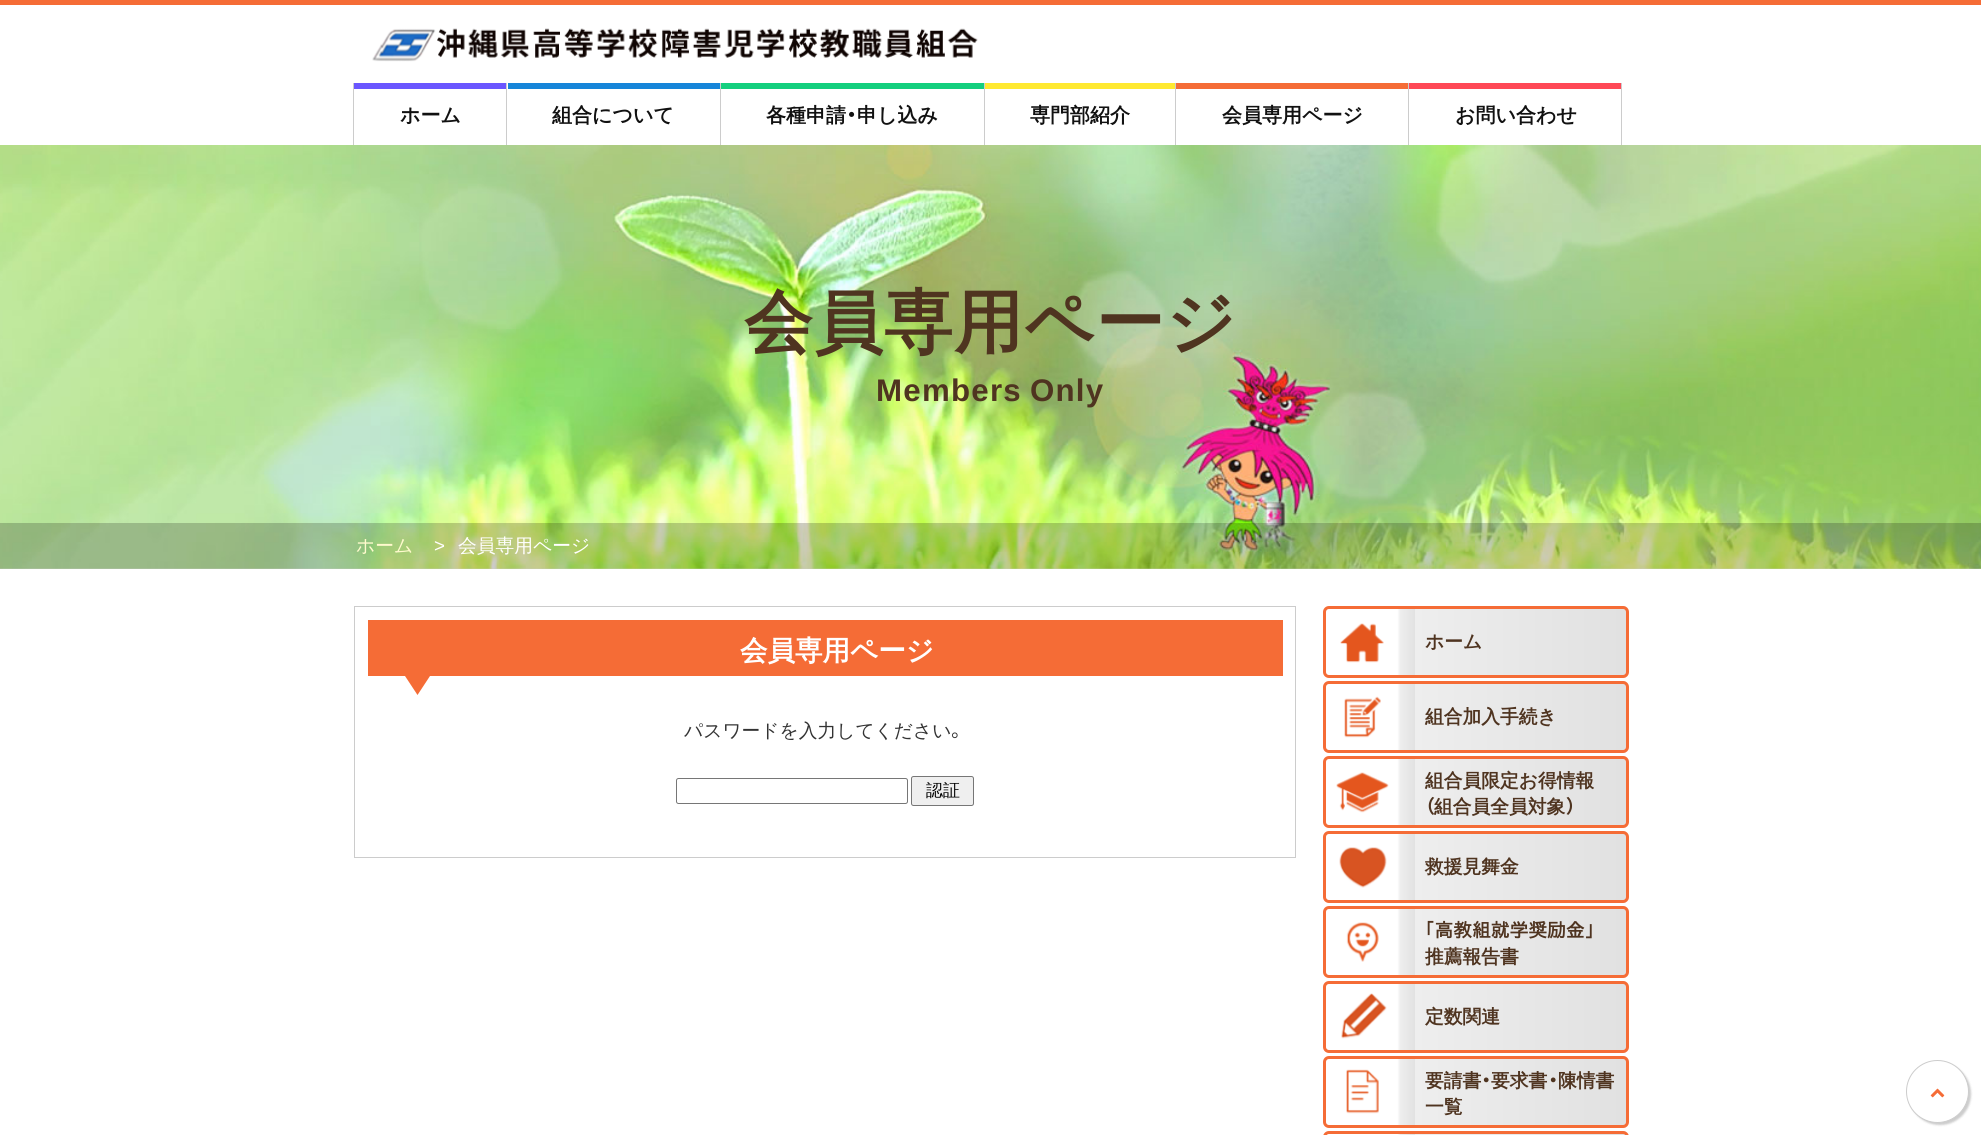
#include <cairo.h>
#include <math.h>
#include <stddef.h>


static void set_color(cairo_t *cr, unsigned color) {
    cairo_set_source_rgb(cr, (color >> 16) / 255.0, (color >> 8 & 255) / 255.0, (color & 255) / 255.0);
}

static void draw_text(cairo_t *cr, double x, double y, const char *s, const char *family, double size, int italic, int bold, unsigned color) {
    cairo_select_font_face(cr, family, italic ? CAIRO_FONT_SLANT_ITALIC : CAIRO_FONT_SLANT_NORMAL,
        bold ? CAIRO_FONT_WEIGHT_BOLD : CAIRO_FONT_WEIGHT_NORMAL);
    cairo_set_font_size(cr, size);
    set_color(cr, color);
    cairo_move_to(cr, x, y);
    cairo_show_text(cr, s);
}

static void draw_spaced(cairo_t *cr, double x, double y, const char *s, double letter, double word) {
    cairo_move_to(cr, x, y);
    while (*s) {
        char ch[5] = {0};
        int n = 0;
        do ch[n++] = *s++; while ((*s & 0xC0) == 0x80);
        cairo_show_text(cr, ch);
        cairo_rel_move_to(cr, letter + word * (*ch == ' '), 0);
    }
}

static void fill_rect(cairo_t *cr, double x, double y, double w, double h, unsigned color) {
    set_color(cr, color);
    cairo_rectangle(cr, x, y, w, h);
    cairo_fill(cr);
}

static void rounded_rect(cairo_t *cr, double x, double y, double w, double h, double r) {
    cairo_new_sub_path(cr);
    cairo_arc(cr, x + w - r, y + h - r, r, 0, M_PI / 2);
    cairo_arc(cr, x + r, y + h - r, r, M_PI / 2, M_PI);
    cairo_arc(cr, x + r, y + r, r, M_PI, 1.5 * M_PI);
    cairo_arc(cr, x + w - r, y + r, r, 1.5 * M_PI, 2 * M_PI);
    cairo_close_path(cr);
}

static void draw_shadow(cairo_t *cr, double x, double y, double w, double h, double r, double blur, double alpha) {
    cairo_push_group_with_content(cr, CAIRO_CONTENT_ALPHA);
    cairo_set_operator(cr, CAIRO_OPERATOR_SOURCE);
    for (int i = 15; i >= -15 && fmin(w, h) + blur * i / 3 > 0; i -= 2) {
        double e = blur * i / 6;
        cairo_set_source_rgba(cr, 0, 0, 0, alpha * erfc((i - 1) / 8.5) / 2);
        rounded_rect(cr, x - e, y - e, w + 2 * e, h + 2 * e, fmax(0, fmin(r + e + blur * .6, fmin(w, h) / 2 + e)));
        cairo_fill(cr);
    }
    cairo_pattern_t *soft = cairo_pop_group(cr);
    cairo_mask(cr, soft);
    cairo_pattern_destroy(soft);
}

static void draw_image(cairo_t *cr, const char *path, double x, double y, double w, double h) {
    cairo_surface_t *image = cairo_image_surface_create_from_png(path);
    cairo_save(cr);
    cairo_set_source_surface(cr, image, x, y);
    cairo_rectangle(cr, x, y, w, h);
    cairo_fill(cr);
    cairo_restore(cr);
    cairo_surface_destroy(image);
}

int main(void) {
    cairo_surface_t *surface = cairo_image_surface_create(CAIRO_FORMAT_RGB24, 1981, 1135);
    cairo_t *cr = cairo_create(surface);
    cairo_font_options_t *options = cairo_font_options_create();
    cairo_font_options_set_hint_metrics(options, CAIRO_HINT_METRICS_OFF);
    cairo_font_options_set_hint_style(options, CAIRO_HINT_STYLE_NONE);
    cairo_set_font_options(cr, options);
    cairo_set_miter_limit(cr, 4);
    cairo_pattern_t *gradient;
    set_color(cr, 0xFFFFFF);
    cairo_paint(cr);
    fill_rect(cr, 0, 0, 1981, 5, 0xF56C36);
    draw_image(cr, "assets/img1.png", 372, 28, 606, 34);
    fill_rect(cr, 353, 83, 1, 62, 0xCCCCCC);
    fill_rect(cr, 354, 83, 152, 6, 0x6A56FF);
    draw_text(cr, 400, 122, "ホーム", "WenQuanYi Zen Hei", 20, 0, 1, 0x111111);
    fill_rect(cr, 506, 83, 1, 62, 0xCCCCCC);
    fill_rect(cr, 508, 83, 212, 6, 0x1685D9);
    draw_text(cr, 552, 122, "組合について", "WenQuanYi Zen Hei", 20, 0, 1, 0x111111);
    fill_rect(cr, 720, 83, 1, 62, 0xCCCCCC);
    fill_rect(cr, 721, 83, 263, 6, 0x14CF7E);
    draw_text(cr, 766, 122, "各種申請", "WenQuanYi Zen Hei", 20, 0, 1, 0x111111);
    draw_text(cr, 846, 122, "・", "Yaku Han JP", 20, 0, 1, 0x111111);
    draw_text(cr, 857, 122, "申し込み", "WenQuanYi Zen Hei", 20, 0, 1, 0x111111);
    fill_rect(cr, 984, 83, 1, 62, 0xCCCCCC);
    fill_rect(cr, 985, 83, 190, 6, 0xFFE931);
    draw_text(cr, 1030, 122, "専門部紹介", "WenQuanYi Zen Hei", 20, 0, 1, 0x111111);
    fill_rect(cr, 1175, 83, 1, 62, 0xCCCCCC);
    fill_rect(cr, 1176, 83, 232, 6, 0xF56C36);
    draw_text(cr, 1222, 122, "会員専用ページ", "WenQuanYi Zen Hei", 20, 0, 1, 0x111111);
    fill_rect(cr, 1621, 83, 1, 62, 0xCCCCCC);
    fill_rect(cr, 1408, 83, 1, 62, 0xCCCCCC);
    fill_rect(cr, 1409, 83, 212, 6, 0xFF4856);
    draw_text(cr, 1455, 122, "お問い合わせ", "WenQuanYi Zen Hei", 20, 0, 1, 0x111111);
    draw_image(cr, "assets/img2.png", 0, 145, 1981, 424);
    cairo_set_font_size(cr, 68.75);
    set_color(cr, 0x4F3420);
    draw_spaced(cr, 744, 346, "会員専用ページ", 1.25, 0);
    cairo_select_font_face(cr, "Liberation Sans", CAIRO_FONT_SLANT_NORMAL, CAIRO_FONT_WEIGHT_BOLD);
    cairo_set_font_size(cr, 31.25);
    draw_spaced(cr, 876, 401, "Members Only", 1.25, -2);
    cairo_set_source_rgba(cr, 0, 0, 0, 0.2);
    cairo_rectangle(cr, 0, 523, 1981, 46);
    cairo_fill(cr);
    draw_text(cr, 356, 552, "ホーム", "WenQuanYi Zen Hei Medium", 18.75, 0, 0, 0xFFFACD);
    draw_text(cr, 434, 552, ">", "Liberation Sans", 18.75, 0, 0, 0xFFFFFF);
    draw_text(cr, 458, 552, "会員専用ページ", "WenQuanYi Zen Hei Medium", 18.75, 0, 0, 0xFFFFFF);
    cairo_rectangle(cr, 354.5, 606.5, 941, 251);
    set_color(cr, 0xCCCCCC);
    cairo_set_line_width(cr, 1);
    cairo_stroke(cr);
    fill_rect(cr, 368, 620, 915, 56, 0xF56C36);
    draw_text(cr, 740, 660, "会員専用ページ", "WenQuanYi Zen Hei", 27.5, 0, 1, 0xFFFFFF);
    set_color(cr, 0xF56C36);
    cairo_new_path(cr);
    cairo_move_to(cr, 405, 676);
    cairo_line_to(cr, 430, 676);
    cairo_line_to(cr, 417.5, 695);
    cairo_close_path(cr);
    cairo_fill(cr);
    draw_text(cr, 684, 737, "パスワードを入力してください", "WenQuanYi Zen Hei Medium", 18.75, 0, 0, 0x333333);
    draw_text(cr, 951, 737, "。", "Yaku Han JP", 18.75, 0, 0, 0x333333);
    rounded_rect(cr, 676.5, 778.5, 231, 25, 2);
    set_color(cr, 0x767676);
    cairo_stroke(cr);
    set_color(cr, 0xEFEFEF);
    rounded_rect(cr, 911.5, 776.5, 62, 29, 2);
    cairo_fill_preserve(cr);
    set_color(cr, 0x767676);
    cairo_stroke(cr);
    draw_text(cr, 926, 796, "認証", "WenQuanYi Zen Hei Medium", 17, 0, 0, 0x000000);
    cairo_save(cr);
    rounded_rect(cr, 1323, 606, 306, 72, 6);
    cairo_clip(cr);
    gradient = cairo_pattern_create_linear(1325, 642, 1626, 642);
    cairo_pattern_add_color_stop_rgba(gradient, 0, 1, 1, 1, 1);
    cairo_pattern_add_color_stop_rgba(gradient, 0.24, 1, 1, 1, 1);
    cairo_pattern_add_color_stop_rgba(gradient, 0.25, 0.933, 0.933, 0.933, 1);
    cairo_pattern_add_color_stop_rgba(gradient, 0.29, 0.894, 0.894, 0.894, 1);
    cairo_pattern_add_color_stop_rgba(gradient, 0.3, 0.882, 0.882, 0.882, 1);
    cairo_pattern_add_color_stop_rgba(gradient, 0.3, 0.933, 0.933, 0.933, 1);
    cairo_pattern_add_color_stop_rgba(gradient, 1, 0.882, 0.882, 0.882, 1);
    cairo_set_source(cr, gradient);
    cairo_pattern_destroy(gradient);
    cairo_rectangle(cr, 1325, 606, 301, 72);
    cairo_fill(cr);
    cairo_restore(cr);
    rounded_rect(cr, 1324.5, 607.5, 303, 69, 4.5);
    set_color(cr, 0xF56C36);
    cairo_set_line_width(cr, 3);
    cairo_stroke(cr);
    draw_image(cr, "assets/img3.png", 1340, 623, 44, 40);
    draw_text(cr, 1425, 648, "ホーム", "WenQuanYi Zen Hei", 18.75, 0, 1, 0x4F3420);
    cairo_save(cr);
    rounded_rect(cr, 1323, 681, 306, 72, 6);
    cairo_clip(cr);
    gradient = cairo_pattern_create_linear(1325, 717, 1626, 717);
    cairo_pattern_add_color_stop_rgba(gradient, 0, 1, 1, 1, 1);
    cairo_pattern_add_color_stop_rgba(gradient, 0.24, 1, 1, 1, 1);
    cairo_pattern_add_color_stop_rgba(gradient, 0.25, 0.933, 0.933, 0.933, 1);
    cairo_pattern_add_color_stop_rgba(gradient, 0.29, 0.894, 0.894, 0.894, 1);
    cairo_pattern_add_color_stop_rgba(gradient, 0.3, 0.882, 0.882, 0.882, 1);
    cairo_pattern_add_color_stop_rgba(gradient, 0.3, 0.933, 0.933, 0.933, 1);
    cairo_pattern_add_color_stop_rgba(gradient, 1, 0.882, 0.882, 0.882, 1);
    cairo_set_source(cr, gradient);
    cairo_pattern_destroy(gradient);
    cairo_rectangle(cr, 1325, 681, 301, 72);
    cairo_fill(cr);
    cairo_restore(cr);
    rounded_rect(cr, 1324.5, 682.5, 303, 69, 4.5);
    set_color(cr, 0xF56C36);
    cairo_stroke(cr);
    draw_image(cr, "assets/img4.png", 1344, 696, 37, 42);
    draw_text(cr, 1425, 723, "組合加入手続き", "WenQuanYi Zen Hei", 18.75, 0, 1, 0x4F3420);
    cairo_save(cr);
    rounded_rect(cr, 1323, 756, 306, 72, 6);
    cairo_clip(cr);
    gradient = cairo_pattern_create_linear(1325, 792, 1626, 792);
    cairo_pattern_add_color_stop_rgba(gradient, 0, 1, 1, 1, 1);
    cairo_pattern_add_color_stop_rgba(gradient, 0.24, 1, 1, 1, 1);
    cairo_pattern_add_color_stop_rgba(gradient, 0.25, 0.933, 0.933, 0.933, 1);
    cairo_pattern_add_color_stop_rgba(gradient, 0.29, 0.894, 0.894, 0.894, 1);
    cairo_pattern_add_color_stop_rgba(gradient, 0.3, 0.882, 0.882, 0.882, 1);
    cairo_pattern_add_color_stop_rgba(gradient, 0.3, 0.933, 0.933, 0.933, 1);
    cairo_pattern_add_color_stop_rgba(gradient, 1, 0.882, 0.882, 0.882, 1);
    cairo_set_source(cr, gradient);
    cairo_pattern_destroy(gradient);
    cairo_rectangle(cr, 1325, 756, 301, 72);
    cairo_fill(cr);
    cairo_restore(cr);
    rounded_rect(cr, 1324.5, 757.5, 303, 69, 4.5);
    set_color(cr, 0xF56C36);
    cairo_stroke(cr);
    draw_image(cr, "assets/img5.png", 1336, 772, 53, 41);
    draw_text(cr, 1425, 787, "組合員限定お得情報", "WenQuanYi Zen Hei", 18.75, 0, 1, 0x4F3420);
    draw_text(cr, 1425, 813, "（", "Yaku Han JP", 18.75, 0, 1, 0x4F3420);
    draw_text(cr, 1434, 813, "組合員全員対象", "WenQuanYi Zen Hei", 18.75, 0, 1, 0x4F3420);
    draw_text(cr, 1566, 813, "）", "Yaku Han JP", 18.75, 0, 1, 0x4F3420);
    cairo_save(cr);
    rounded_rect(cr, 1323, 831, 306, 72, 6);
    cairo_clip(cr);
    gradient = cairo_pattern_create_linear(1325, 867, 1626, 867);
    cairo_pattern_add_color_stop_rgba(gradient, 0, 1, 1, 1, 1);
    cairo_pattern_add_color_stop_rgba(gradient, 0.24, 1, 1, 1, 1);
    cairo_pattern_add_color_stop_rgba(gradient, 0.25, 0.933, 0.933, 0.933, 1);
    cairo_pattern_add_color_stop_rgba(gradient, 0.29, 0.894, 0.894, 0.894, 1);
    cairo_pattern_add_color_stop_rgba(gradient, 0.3, 0.882, 0.882, 0.882, 1);
    cairo_pattern_add_color_stop_rgba(gradient, 0.3, 0.933, 0.933, 0.933, 1);
    cairo_pattern_add_color_stop_rgba(gradient, 1, 0.882, 0.882, 0.882, 1);
    cairo_set_source(cr, gradient);
    cairo_pattern_destroy(gradient);
    cairo_rectangle(cr, 1325, 831, 301, 72);
    cairo_fill(cr);
    cairo_restore(cr);
    rounded_rect(cr, 1324.5, 832.5, 303, 69, 4.5);
    set_color(cr, 0xF56C36);
    cairo_stroke(cr);
    draw_image(cr, "assets/img6.png", 1339, 847, 48, 41);
    draw_text(cr, 1425, 873, "救援見舞金", "WenQuanYi Zen Hei", 18.75, 0, 1, 0x4F3420);
    cairo_save(cr);
    rounded_rect(cr, 1323, 906, 306, 72, 6);
    cairo_clip(cr);
    gradient = cairo_pattern_create_linear(1325, 942, 1626, 942);
    cairo_pattern_add_color_stop_rgba(gradient, 0, 1, 1, 1, 1);
    cairo_pattern_add_color_stop_rgba(gradient, 0.24, 1, 1, 1, 1);
    cairo_pattern_add_color_stop_rgba(gradient, 0.25, 0.933, 0.933, 0.933, 1);
    cairo_pattern_add_color_stop_rgba(gradient, 0.29, 0.894, 0.894, 0.894, 1);
    cairo_pattern_add_color_stop_rgba(gradient, 0.3, 0.882, 0.882, 0.882, 1);
    cairo_pattern_add_color_stop_rgba(gradient, 0.3, 0.933, 0.933, 0.933, 1);
    cairo_pattern_add_color_stop_rgba(gradient, 1, 0.882, 0.882, 0.882, 1);
    cairo_set_source(cr, gradient);
    cairo_pattern_destroy(gradient);
    cairo_rectangle(cr, 1325, 906, 301, 72);
    cairo_fill(cr);
    cairo_restore(cr);
    rounded_rect(cr, 1324.5, 907.5, 303, 69, 4.5);
    set_color(cr, 0xF56C36);
    cairo_stroke(cr);
    draw_image(cr, "assets/img7.png", 1346, 922, 33, 40);
    draw_text(cr, 1425, 937, "｢高教組就学奨励金｣", "IPAPGothic", 18.75, 0, 1, 0x4F3420);
    draw_text(cr, 1425, 963, "推薦報告書", "WenQuanYi Zen Hei", 18.75, 0, 1, 0x4F3420);
    cairo_save(cr);
    rounded_rect(cr, 1323, 981, 306, 72, 6);
    cairo_clip(cr);
    gradient = cairo_pattern_create_linear(1325, 1017, 1626, 1017);
    cairo_pattern_add_color_stop_rgba(gradient, 0, 1, 1, 1, 1);
    cairo_pattern_add_color_stop_rgba(gradient, 0.24, 1, 1, 1, 1);
    cairo_pattern_add_color_stop_rgba(gradient, 0.25, 0.933, 0.933, 0.933, 1);
    cairo_pattern_add_color_stop_rgba(gradient, 0.29, 0.894, 0.894, 0.894, 1);
    cairo_pattern_add_color_stop_rgba(gradient, 0.3, 0.882, 0.882, 0.882, 1);
    cairo_pattern_add_color_stop_rgba(gradient, 0.3, 0.933, 0.933, 0.933, 1);
    cairo_pattern_add_color_stop_rgba(gradient, 1, 0.882, 0.882, 0.882, 1);
    cairo_set_source(cr, gradient);
    cairo_pattern_destroy(gradient);
    cairo_rectangle(cr, 1325, 981, 301, 72);
    cairo_fill(cr);
    cairo_restore(cr);
    rounded_rect(cr, 1324.5, 982.5, 303, 69, 4.5);
    set_color(cr, 0xF56C36);
    cairo_stroke(cr);
    draw_image(cr, "assets/img8.png", 1341, 993, 46, 46);
    draw_text(cr, 1425, 1023, "定数関連", "WenQuanYi Zen Hei", 18.75, 0, 1, 0x4F3420);
    cairo_save(cr);
    rounded_rect(cr, 1323, 1056, 306, 72, 6);
    cairo_clip(cr);
    gradient = cairo_pattern_create_linear(1325, 1092, 1626, 1092);
    cairo_pattern_add_color_stop_rgba(gradient, 0, 1, 1, 1, 1);
    cairo_pattern_add_color_stop_rgba(gradient, 0.24, 1, 1, 1, 1);
    cairo_pattern_add_color_stop_rgba(gradient, 0.25, 0.933, 0.933, 0.933, 1);
    cairo_pattern_add_color_stop_rgba(gradient, 0.29, 0.894, 0.894, 0.894, 1);
    cairo_pattern_add_color_stop_rgba(gradient, 0.3, 0.882, 0.882, 0.882, 1);
    cairo_pattern_add_color_stop_rgba(gradient, 0.3, 0.933, 0.933, 0.933, 1);
    cairo_pattern_add_color_stop_rgba(gradient, 1, 0.882, 0.882, 0.882, 1);
    cairo_set_source(cr, gradient);
    cairo_pattern_destroy(gradient);
    cairo_rectangle(cr, 1325, 1056, 301, 72);
    cairo_fill(cr);
    cairo_restore(cr);
    rounded_rect(cr, 1324.5, 1057.5, 303, 69, 4.5);
    set_color(cr, 0xF56C36);
    cairo_stroke(cr);
    draw_image(cr, "assets/img9.png", 1346, 1069, 33, 45);
    draw_text(cr, 1425, 1087, "要請書", "WenQuanYi Zen Hei", 18.75, 0, 1, 0x4F3420);
    draw_text(cr, 1481, 1087, "・", "Yaku Han JP", 18.75, 0, 1, 0x4F3420);
    draw_text(cr, 1491, 1087, "要求書", "WenQuanYi Zen Hei", 18.75, 0, 1, 0x4F3420);
    draw_text(cr, 1548, 1087, "・", "Yaku Han JP", 18.75, 0, 1, 0x4F3420);
    draw_text(cr, 1558, 1087, "陳情書", "WenQuanYi Zen Hei", 18.75, 0, 1, 0x4F3420);
    draw_text(cr, 1425, 1113, "一覧", "WenQuanYi Zen Hei", 18.75, 0, 1, 0x4F3420);
    cairo_save(cr);
    rounded_rect(cr, 1323, 1131, 306, 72, 6);
    cairo_clip(cr);
    gradient = cairo_pattern_create_linear(1325, 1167, 1626, 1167);
    cairo_pattern_add_color_stop_rgba(gradient, 0, 1, 1, 1, 1);
    cairo_pattern_add_color_stop_rgba(gradient, 0.24, 1, 1, 1, 1);
    cairo_pattern_add_color_stop_rgba(gradient, 0.25, 0.933, 0.933, 0.933, 1);
    cairo_pattern_add_color_stop_rgba(gradient, 0.29, 0.894, 0.894, 0.894, 1);
    cairo_pattern_add_color_stop_rgba(gradient, 0.3, 0.882, 0.882, 0.882, 1);
    cairo_pattern_add_color_stop_rgba(gradient, 0.3, 0.933, 0.933, 0.933, 1);
    cairo_pattern_add_color_stop_rgba(gradient, 1, 0.882, 0.882, 0.882, 1);
    cairo_set_source(cr, gradient);
    cairo_pattern_destroy(gradient);
    cairo_rectangle(cr, 1325, 1131, 301, 4);
    cairo_fill(cr);
    cairo_restore(cr);
    rounded_rect(cr, 1324.5, 1132.5, 303, 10, 4.5);
    set_color(cr, 0xF56C36);
    cairo_stroke(cr);
    set_color(cr, 0x000000);
    draw_shadow(cr, 1909, 1063, 62, 62, 31, 1, 0.2);
    set_color(cr, 0xFFFFFF);
    cairo_arc(cr, 1937.5, 1091.5, 31, 0, 2 * M_PI);
    cairo_fill_preserve(cr);
    set_color(cr, 0xCCCCCC);
    cairo_set_line_width(cr, 1);
    cairo_stroke(cr);
    draw_image(cr, "assets/img10.png", 1930, 1088, 15, 10);
    cairo_surface_write_to_png(surface, "output.png");
    cairo_font_options_destroy(options);
    cairo_destroy(cr);
    cairo_surface_destroy(surface);
    return 0;
}
